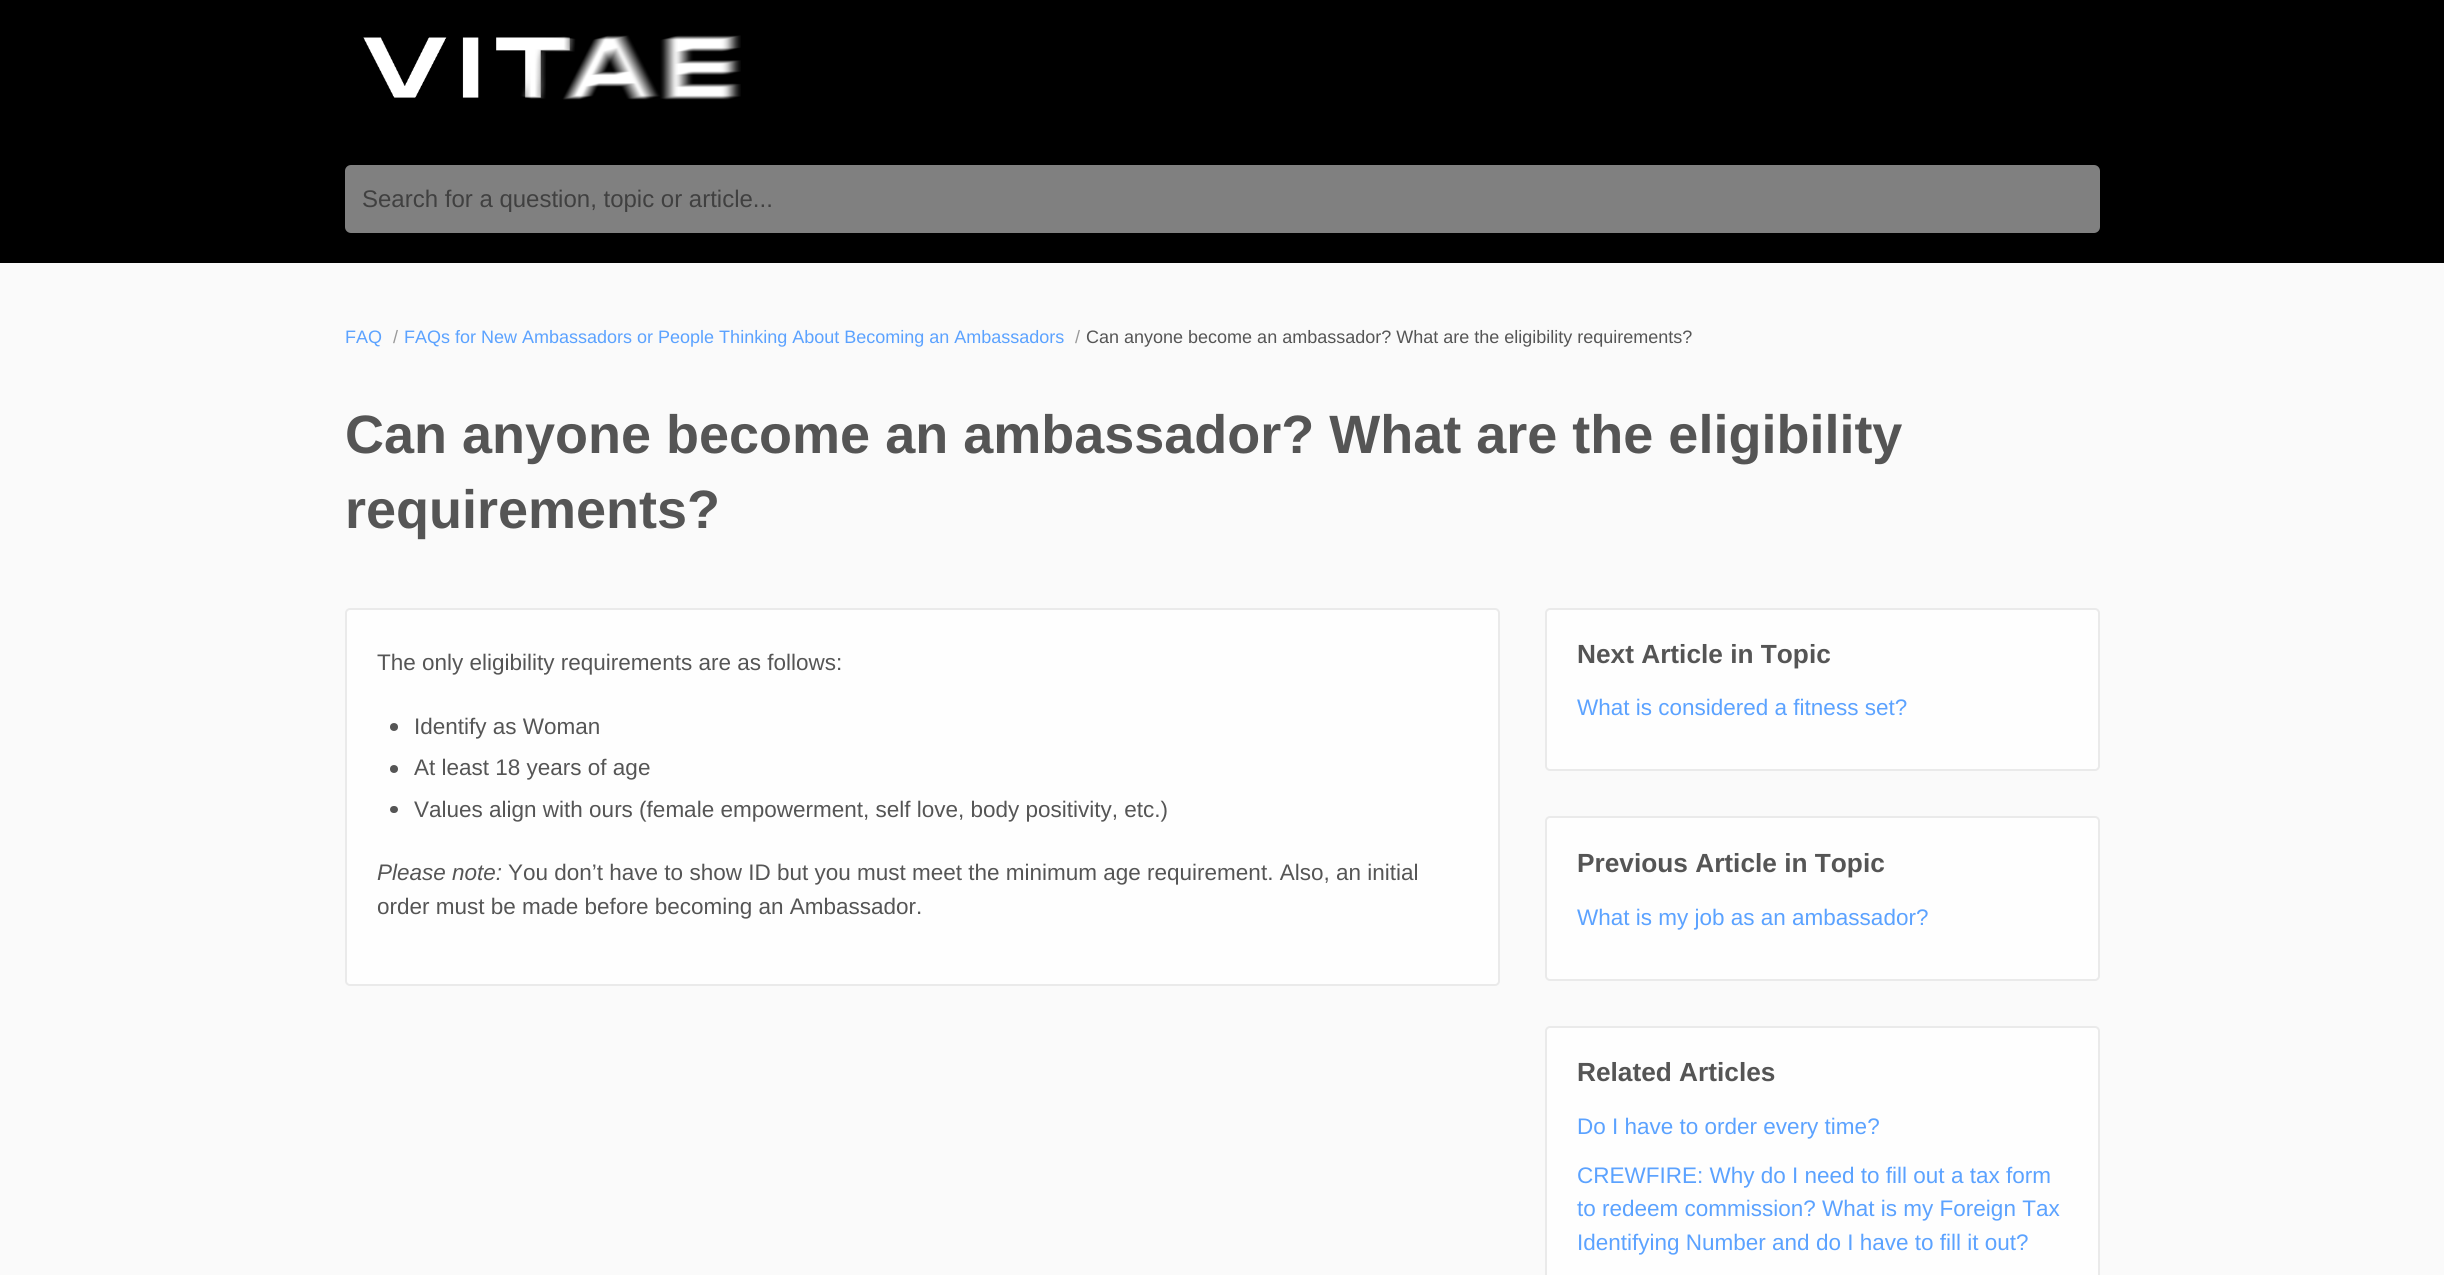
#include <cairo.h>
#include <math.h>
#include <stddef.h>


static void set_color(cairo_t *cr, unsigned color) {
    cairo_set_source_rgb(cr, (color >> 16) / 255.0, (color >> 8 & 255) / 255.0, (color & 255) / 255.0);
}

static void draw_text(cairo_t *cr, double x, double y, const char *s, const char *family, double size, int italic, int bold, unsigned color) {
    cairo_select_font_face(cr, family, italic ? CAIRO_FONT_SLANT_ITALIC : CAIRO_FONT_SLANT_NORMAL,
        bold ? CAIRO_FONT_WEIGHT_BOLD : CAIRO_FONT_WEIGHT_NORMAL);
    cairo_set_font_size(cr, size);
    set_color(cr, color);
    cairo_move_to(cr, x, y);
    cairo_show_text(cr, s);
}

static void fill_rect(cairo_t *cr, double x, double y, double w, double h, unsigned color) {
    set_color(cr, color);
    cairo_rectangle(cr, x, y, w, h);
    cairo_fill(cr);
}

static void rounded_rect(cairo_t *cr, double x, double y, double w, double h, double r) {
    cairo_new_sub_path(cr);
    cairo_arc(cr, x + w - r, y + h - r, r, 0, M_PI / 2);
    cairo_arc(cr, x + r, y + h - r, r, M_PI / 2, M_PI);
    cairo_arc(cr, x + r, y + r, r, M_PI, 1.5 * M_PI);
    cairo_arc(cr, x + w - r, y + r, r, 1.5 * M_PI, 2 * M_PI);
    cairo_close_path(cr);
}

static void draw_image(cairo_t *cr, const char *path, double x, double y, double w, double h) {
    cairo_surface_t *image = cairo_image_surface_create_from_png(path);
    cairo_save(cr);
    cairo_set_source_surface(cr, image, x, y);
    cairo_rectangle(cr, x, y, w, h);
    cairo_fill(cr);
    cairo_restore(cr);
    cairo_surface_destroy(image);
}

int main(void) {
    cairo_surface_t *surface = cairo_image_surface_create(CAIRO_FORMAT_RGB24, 2444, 1275);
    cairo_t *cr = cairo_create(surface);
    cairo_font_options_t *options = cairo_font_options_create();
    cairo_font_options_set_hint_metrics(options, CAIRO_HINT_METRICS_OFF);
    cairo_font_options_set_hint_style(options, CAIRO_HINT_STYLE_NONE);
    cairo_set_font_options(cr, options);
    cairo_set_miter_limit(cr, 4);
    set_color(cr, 0xFAFAFA);
    cairo_paint(cr);
    fill_rect(cr, 0, 0, 2444, 263, 0x000000);
    draw_image(cr, "assets/img1.png", 363, 35, 378, 65);
    set_color(cr, 0x808080);
    rounded_rect(cr, 345, 165, 1755, 68, 6);
    cairo_fill(cr);
    draw_text(cr, 362, 207, "Search for a question, topic or article...", "Liberation Sans", 24, 0, 0, 0x404040);
    draw_text(cr, 345, 343, "FAQ", "Liberation Sans", 18, 0, 0, 0x5BA2FF);
    draw_text(cr, 393, 343, "/", "Liberation Sans", 18, 0, 0, 0x999999);
    draw_text(cr, 404, 343, "FAQs for New Ambassadors or People Thinking About Becoming an Ambassadors", "Liberation Sans", 18, 0, 0, 0x5BA2FF);
    draw_text(cr, 1075, 343, "/", "Liberation Sans", 18, 0, 0, 0x999999);
    draw_text(cr, 1086, 343, "Can anyone become an ambassador? What are the eligibility requirements?", "Liberation Sans", 18, 0, 0, 0x555555);
    draw_text(cr, 345, 453, "Can anyone become an ambassador? What are the eligibility", "Liberation Sans", 54, 0, 1, 0x555555);
    draw_text(cr, 345, 528, "requirements?", "Liberation Sans", 54, 0, 1, 0x555555);
    cairo_set_source_rgba(cr, 1, 1, 1, 0.8);
    rounded_rect(cr, 345, 608, 1155, 378, 5);
    cairo_fill(cr);
    rounded_rect(cr, 346, 609, 1153, 376, 4);
    cairo_set_source_rgba(cr, 0, 0, 0, 0.08);
    cairo_stroke(cr);
    draw_text(cr, 377, 670, "The only eligibility requirements are as follows:", "Liberation Sans", 22.5, 0, 0, 0x555555);
    cairo_new_path(cr);
    cairo_arc(cr, 394, 727, 4, 0, 2 * M_PI);
    cairo_fill(cr);
    draw_text(cr, 414, 734, "Identify as Woman", "Liberation Sans", 22.5, 0, 0, 0x555555);
    cairo_new_path(cr);
    cairo_arc(cr, 394, 769, 4, 0, 2 * M_PI);
    cairo_fill(cr);
    draw_text(cr, 414, 775, "At least 18 years of age", "Liberation Sans", 22.5, 0, 0, 0x555555);
    rounded_rect(cr, 390, 806, 8, 7, 3.5);
    cairo_fill(cr);
    draw_text(cr, 414, 817, "Values align with ours (female empowerment, self love, body positivity, etc.)", "Liberation Sans", 22.5, 0, 0, 0x555555);
    draw_text(cr, 377, 880, "Please note:", "Liberation Sans", 22.5, 1, 0, 0x555555);
    draw_text(cr, 508, 880, "You don’t have to show ID but you must meet the minimum age requirement. Also, an initial", "Liberation Sans", 22.5, 0, 0, 0x555555);
    draw_text(cr, 377, 914, "order must be made before becoming an Ambassador.", "Liberation Sans", 22.5, 0, 0, 0x555555);
    set_color(cr, 0xFEFEFE);
    rounded_rect(cr, 1546, 609, 553, 161, 4);
    cairo_fill_preserve(cr);
    set_color(cr, 0xEAEAEA);
    cairo_stroke(cr);
    draw_text(cr, 1577, 663, "Next Article in Topic", "Liberation Sans", 26.25, 0, 1, 0x555555);
    draw_text(cr, 1577, 715, "What is considered a fitness set?", "Liberation Sans", 22.5, 0, 0, 0x5BA2FF);
    set_color(cr, 0xFEFEFE);
    rounded_rect(cr, 1546, 817, 553, 163, 4);
    cairo_fill_preserve(cr);
    set_color(cr, 0xEAEAEA);
    cairo_stroke(cr);
    draw_text(cr, 1577, 872, "Previous Article in Topic", "Liberation Sans", 26.25, 0, 1, 0x555555);
    draw_text(cr, 1577, 925, "What is my job as an ambassador?", "Liberation Sans", 22.5, 0, 0, 0x5BA2FF);
    set_color(cr, 0xFEFEFE);
    rounded_rect(cr, 1546, 1027, 553, 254, 4);
    cairo_fill_preserve(cr);
    set_color(cr, 0xEAEAEA);
    cairo_stroke(cr);
    draw_text(cr, 1577, 1081, "Related Articles", "Liberation Sans", 26.25, 0, 1, 0x555555);
    draw_text(cr, 1577, 1134, "Do I have to order every time?", "Liberation Sans", 22.5, 0, 0, 0x5BA2FF);
    draw_text(cr, 1577, 1183, "CREWFIRE: Why do I need to fill out a tax form", "Liberation Sans", 22.5, 0, 0, 0x5BA2FF);
    draw_text(cr, 1577, 1216, "to redeem commission? What is my Foreign Tax", "Liberation Sans", 22.5, 0, 0, 0x5BA2FF);
    draw_text(cr, 1577, 1250, "Identifying Number and do I have to fill it out?", "Liberation Sans", 22.5, 0, 0, 0x5BA2FF);
    cairo_surface_write_to_png(surface, "output.png");
    cairo_font_options_destroy(options);
    cairo_destroy(cr);
    cairo_surface_destroy(surface);
    return 0;
}
